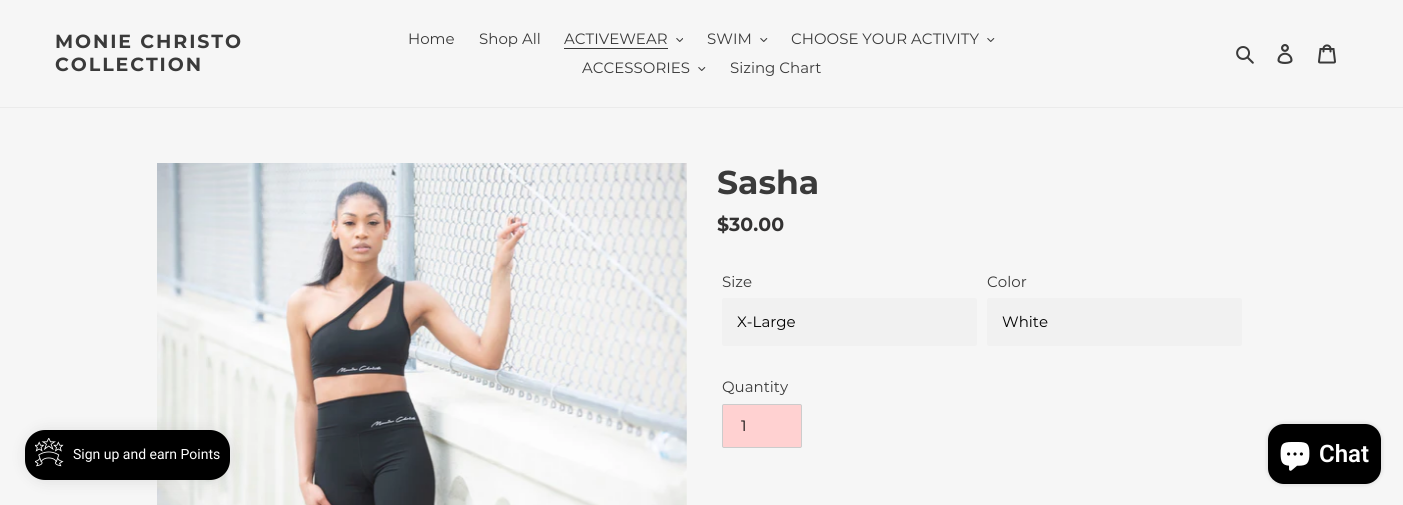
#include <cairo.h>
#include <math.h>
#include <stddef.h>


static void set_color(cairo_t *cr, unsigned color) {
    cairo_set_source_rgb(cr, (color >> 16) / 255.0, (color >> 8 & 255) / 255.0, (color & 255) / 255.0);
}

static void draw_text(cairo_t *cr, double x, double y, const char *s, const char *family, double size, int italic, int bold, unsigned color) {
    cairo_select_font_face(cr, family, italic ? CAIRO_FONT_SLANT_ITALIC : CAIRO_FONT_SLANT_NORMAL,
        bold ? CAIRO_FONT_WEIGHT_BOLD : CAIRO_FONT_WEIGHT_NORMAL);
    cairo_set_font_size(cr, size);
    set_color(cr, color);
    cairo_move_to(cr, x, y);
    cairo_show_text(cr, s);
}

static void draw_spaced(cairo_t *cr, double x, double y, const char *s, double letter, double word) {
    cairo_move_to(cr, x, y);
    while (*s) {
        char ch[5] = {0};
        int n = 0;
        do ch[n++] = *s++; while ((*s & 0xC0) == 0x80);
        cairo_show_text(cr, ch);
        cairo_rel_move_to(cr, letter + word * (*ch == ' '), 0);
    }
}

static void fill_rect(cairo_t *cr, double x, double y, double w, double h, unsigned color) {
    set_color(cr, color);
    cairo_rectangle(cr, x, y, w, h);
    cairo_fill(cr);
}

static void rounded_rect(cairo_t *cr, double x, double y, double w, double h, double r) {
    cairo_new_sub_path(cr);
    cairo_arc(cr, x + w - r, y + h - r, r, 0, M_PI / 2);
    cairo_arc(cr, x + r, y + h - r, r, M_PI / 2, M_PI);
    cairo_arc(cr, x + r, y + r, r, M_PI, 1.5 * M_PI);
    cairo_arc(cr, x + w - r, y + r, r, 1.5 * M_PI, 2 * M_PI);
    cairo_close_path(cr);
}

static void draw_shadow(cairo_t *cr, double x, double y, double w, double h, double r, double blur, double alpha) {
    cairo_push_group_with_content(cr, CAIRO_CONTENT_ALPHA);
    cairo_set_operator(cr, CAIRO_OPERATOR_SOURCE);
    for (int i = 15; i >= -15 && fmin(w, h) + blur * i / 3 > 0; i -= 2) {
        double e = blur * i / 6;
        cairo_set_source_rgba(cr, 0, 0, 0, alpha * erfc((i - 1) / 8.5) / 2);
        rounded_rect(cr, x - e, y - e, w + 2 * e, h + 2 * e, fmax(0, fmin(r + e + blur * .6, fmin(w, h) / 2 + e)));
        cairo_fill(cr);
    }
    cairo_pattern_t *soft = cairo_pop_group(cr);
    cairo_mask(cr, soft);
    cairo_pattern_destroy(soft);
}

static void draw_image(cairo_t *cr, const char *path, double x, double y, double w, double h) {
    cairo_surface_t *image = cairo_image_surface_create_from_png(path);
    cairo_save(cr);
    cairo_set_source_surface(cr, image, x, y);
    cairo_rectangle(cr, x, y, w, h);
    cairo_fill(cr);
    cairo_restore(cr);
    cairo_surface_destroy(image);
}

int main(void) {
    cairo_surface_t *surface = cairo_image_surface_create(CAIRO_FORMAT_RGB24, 1403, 505);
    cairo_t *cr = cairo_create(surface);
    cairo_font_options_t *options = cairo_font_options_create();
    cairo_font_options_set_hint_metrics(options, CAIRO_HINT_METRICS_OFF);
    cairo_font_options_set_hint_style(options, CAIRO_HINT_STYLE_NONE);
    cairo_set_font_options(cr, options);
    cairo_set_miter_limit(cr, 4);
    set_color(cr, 0xF6F6F6);
    cairo_paint(cr);
    fill_rect(cr, 0, 107, 1403, 1, 0xEBEBEB);
    cairo_select_font_face(cr, "Montserrat", CAIRO_FONT_SLANT_NORMAL, CAIRO_FONT_WEIGHT_BOLD);
    cairo_set_font_size(cr, 19);
    set_color(cr, 0x3A3A3A);
    draw_spaced(cr, 55, 48, "MONIE CHRISTO", 1.9, 0);
    draw_spaced(cr, 55, 71, "COLLECTION", 1.9, 0);
    draw_text(cr, 408, 44, "Home", "Montserrat", 15, 0, 0, 0x3A3A3A);
    draw_text(cr, 479, 44, "Shop All", "Montserrat", 15, 0, 0, 0x3A3A3A);
    draw_text(cr, 564, 44, "ACTIVEWEAR", "Montserrat", 15, 0, 0, 0x3A3A3A);
    fill_rect(cr, 564, 48, 104, 1, 0x3A3A3A);
    draw_image(cr, "assets/img1.png", 676, 38, 7, 4);
    draw_text(cr, 707, 44, "SWIM", "Montserrat", 15, 0, 0, 0x3A3A3A);
    draw_image(cr, "assets/img2.png", 760, 38, 8, 4);
    draw_text(cr, 791, 44, "CHOOSE YOUR ACTIVITY", "Montserrat", 15, 0, 0, 0x3A3A3A);
    draw_image(cr, "assets/img2.png", 987, 38, 8, 4);
    draw_text(cr, 582, 73, "ACCESSORIES", "Montserrat", 15, 0, 0, 0x3A3A3A);
    draw_image(cr, "assets/img2.png", 698, 67, 8, 4);
    draw_text(cr, 730, 73, "Sizing Chart", "Montserrat", 15, 0, 0, 0x3A3A3A);
    draw_image(cr, "assets/img3.png", 1236, 46, 18, 18);
    draw_image(cr, "assets/img4.png", 1277, 44, 16, 20);
    draw_image(cr, "assets/img5.png", 1318, 44, 18, 20);
    draw_image(cr, "assets/img6.png", 157, 163, 530, 342);
    draw_text(cr, 717, 194, "Sasha", "Montserrat", 33, 0, 1, 0x3A3A3A);
    draw_text(cr, 717, 231, "$30.00", "Montserrat", 19, 0, 1, 0x333232);
    draw_text(cr, 722, 287, "Size", "Montserrat", 15, 0, 0, 0x3A3A3A);
    set_color(cr, 0xF1F1F1);
    rounded_rect(cr, 722, 298, 255, 48, 2);
    cairo_fill(cr);
    draw_text(cr, 737, 327, "X-Large", "Montserrat", 15, 0, 0, 0x000000);
    draw_text(cr, 987, 287, "Color", "Montserrat", 15, 0, 0, 0x3A3A3A);
    set_color(cr, 0xF1F1F1);
    rounded_rect(cr, 987, 298, 255, 48, 2);
    cairo_fill(cr);
    draw_text(cr, 1002, 327, "White", "Montserrat", 15, 0, 0, 0x000000);
    draw_text(cr, 722, 392, "Quantity", "Montserrat", 15, 0, 0, 0x3A3A3A);
    set_color(cr, 0xFFD1D1);
    rounded_rect(cr, 722.5, 404.5, 79, 43, 1.5);
    cairo_fill_preserve(cr);
    set_color(cr, 0xCCCCCC);
    cairo_set_line_width(cr, 1);
    cairo_stroke(cr);
    draw_text(cr, 741, 431, "1", "Montserrat", 15, 0, 0, 0x000000);
    set_color(cr, 0x000000);
    draw_shadow(cr, 26, 431, 205, 50, 20, 7.5, 0.1);
    set_color(cr, 0x000000);
    rounded_rect(cr, 25, 430, 205, 50, 20);
    cairo_fill(cr);
    draw_image(cr, "assets/img7.png", 35, 438, 29, 29);
    draw_text(cr, 73, 459, "Sign up and earn Points", "Roboto", 14, 0, 0, 0xFFFFFF);
    set_color(cr, 0x000000);
    draw_shadow(cr, 1268, 424, 113, 60, 16, 2.5, 0.15);
    set_color(cr, 0x000000);
    rounded_rect(cr, 1268, 424, 113, 60, 16);
    cairo_fill(cr);
    draw_image(cr, "assets/img8.png", 1280, 442, 30, 29);
    draw_text(cr, 1319, 462, "Chat", "Roboto SemiBold", 24, 0, 0, 0xFFFFFF);
    cairo_surface_write_to_png(surface, "output.png");
    cairo_font_options_destroy(options);
    cairo_destroy(cr);
    cairo_surface_destroy(surface);
    return 0;
}
